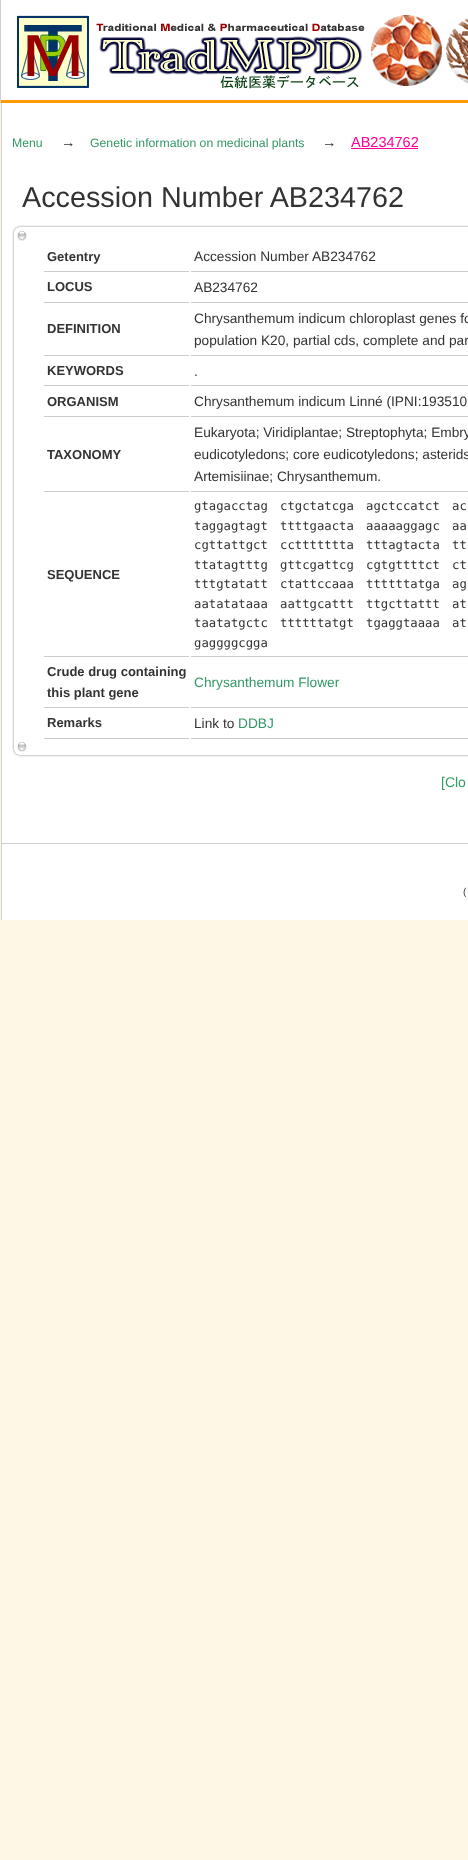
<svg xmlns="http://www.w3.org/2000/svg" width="468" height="1860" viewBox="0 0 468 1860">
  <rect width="100%" height="100%" fill="#fff7e5"/>
  <path d="M1 0h467v100H1z" fill="#fff"/>
  <path d="M0 0h1v103H0z" fill="#cecfce"/>
  <image x="17" y="15" width="451" height="74" href="img/1.png"/>
  <path d="M1 100h467v3H1z" fill="#f90"/>
  <path d="M2 103h466v817H2z" fill="#fff"/>
  <path d="M1 103h1v817H1z" fill="#cecfce"/>
  <path d="M351 148h67v1H351z" fill="#f09"/>
  <image x="27" y="225" width="441" height="2" href="img/2.png"/>
  <image x="12" y="225" width="15" height="16" href="img/3.png"/>
  <image x="12" y="241" width="2" height="500" href="img/4.png"/>
  <path d="M44 271h145v1H44z" fill="#ccc"/>
  <path d="M191 271h277v1H191z" fill="#ccc"/>
  <path d="M44 302h145v1H44z" fill="#ccc"/>
  <path d="M191 302h277v1H191z" fill="#ccc"/>
  <path d="M44 355h145v1H44z" fill="#ccc"/>
  <path d="M191 355h277v1H191z" fill="#ccc"/>
  <path d="M44 385h145v1H44z" fill="#ccc"/>
  <path d="M191 385h277v1H191z" fill="#ccc"/>
  <path d="M44 416h145v1H44z" fill="#ccc"/>
  <path d="M191 416h277v1H191z" fill="#ccc"/>
  <path d="M44 491h145v1H44z" fill="#ccc"/>
  <path d="M191 491h277v1H191z" fill="#ccc"/>
  <path d="M44 656h145v1H44z" fill="#ccc"/>
  <path d="M191 656h277v1H191z" fill="#ccc"/>
  <path d="M44 707h145v1H44z" fill="#ccc"/>
  <path d="M191 707h277v1H191z" fill="#ccc"/>
  <path d="M44 738h145v1H44z" fill="#ccc"/>
  <path d="M191 738h277v1H191z" fill="#ccc"/>
  <image x="27" y="755" width="441" height="2" href="img/5.png"/>
  <image x="12" y="741" width="15" height="16" href="img/6.png"/>
  <path d="M2 843h466v1H2z" fill="#cecfce"/>
  <text x="12" y="147" font-family="Liberation Sans" font-size="12.25" fill="#396">Menu</text>
  <text x="61" y="147" font-family="Liberation Sans" font-size="14.5" fill="#333">→</text>
  <text x="90" y="147" font-family="Liberation Sans" font-size="12.25" fill="#396">Genetic information on medicinal plants</text>
  <text x="322" y="147" font-family="Liberation Sans" font-size="14.5" fill="#333">→</text>
  <text x="351" y="147" font-family="Liberation Sans" font-size="14.5" fill="#f09">AB234762</text>
  <text x="22" y="207" font-family="Liberation Sans" font-size="28.75" fill="#333">Accession Number AB234762</text>
  <text x="47" y="261" font-family="Liberation Sans" font-size="13" font-weight="bold" fill="#333">Getentry</text>
  <text x="194" y="261" font-family="Liberation Sans" font-size="13.7" fill="#333">Accession Number AB234762</text>
  <text x="47" y="291" font-family="Liberation Sans" font-size="13" font-weight="bold" fill="#333">LOCUS</text>
  <text x="194" y="292" font-family="Liberation Sans" font-size="13.7" fill="#333">AB234762</text>
  <text x="47" y="333" font-family="Liberation Sans" font-size="13" font-weight="bold" fill="#333">DEFINITION</text>
  <g font-family="Liberation Sans" font-size="13.7" fill="#333">
    <text x="194" y="323">Chrysanthemum indicum chloroplast genes fo</text>
    <text x="194" y="345">population K20, partial cds, complete and par</text>
  </g>
  <text x="47" y="375" font-family="Liberation Sans" font-size="13" font-weight="bold" fill="#333">KEYWORDS</text>
  <text x="194" y="376" font-family="Liberation Sans" font-size="13.7" fill="#333">.</text>
  <text x="47" y="406" font-family="Liberation Sans" font-size="13" font-weight="bold" fill="#333">ORGANISM</text>
  <text x="194" y="406" font-family="Liberation Sans" font-size="13.7" fill="#333">Chrysanthemum indicum Linné (IPNI:193510</text>
  <text x="47" y="459" font-family="Liberation Sans" font-size="13" font-weight="bold" fill="#333">TAXONOMY</text>
  <g font-family="Liberation Sans" font-size="13.7" fill="#333">
    <text x="194" y="437">Eukaryota; Viridiplantae; Streptophyta; Embry</text>
    <text x="194" y="459">eudicotyledons; core eudicotyledons; asterids</text>
    <text x="194" y="481">Artemisiinae; Chrysanthemum.</text>
  </g>
  <text x="47" y="579" font-family="Liberation Sans" font-size="13" font-weight="bold" fill="#333">SEQUENCE</text>
  <g font-family="DejaVu Sans Mono" font-size="12.25" fill="#333">
    <text x="194" y="510">gtagacctag</text>
    <text x="280" y="510">ctgctatcga</text>
    <text x="366" y="510">agctccatct</text>
    <text x="452" y="510">ac</text>
    <text x="194" y="530">taggagtagt</text>
    <text x="280" y="530">ttttgaacta</text>
    <text x="366" y="530">aaaaaggagc</text>
    <text x="452" y="530">aa</text>
    <text x="194" y="549">cgttattgct</text>
    <text x="280" y="549">ccttttttta</text>
    <text x="366" y="549">tttagtacta</text>
    <text x="452" y="549">tt</text>
    <text x="194" y="569">ttatagtttg</text>
    <text x="280" y="569">gttcgattcg</text>
    <text x="366" y="569">cgtgttttct</text>
    <text x="452" y="569">ct</text>
    <text x="194" y="588">tttgtatatt</text>
    <text x="280" y="588">ctattccaaa</text>
    <text x="366" y="588">ttttttatga</text>
    <text x="452" y="588">ag</text>
    <text x="194" y="608">aatatataaa</text>
    <text x="280" y="608">aattgcattt</text>
    <text x="366" y="608">ttgcttattt</text>
    <text x="452" y="608">at</text>
    <text x="194" y="627">taatatgctc</text>
    <text x="280" y="627">ttttttatgt</text>
    <text x="366" y="627">tgaggtaaaa</text>
    <text x="452" y="627">at</text>
    <text x="194" y="647">gaggggcgga</text>
  </g>
  <g font-family="Liberation Sans" font-size="13" font-weight="bold" fill="#333">
    <text x="47" y="676">Crude drug containing</text>
    <text x="47" y="697">this plant gene</text>
  </g>
  <text x="194" y="687" font-family="Liberation Sans" font-size="13.7" fill="#396">Chrysanthemum Flower</text>
  <text x="47" y="727" font-family="Liberation Sans" font-size="13" font-weight="bold" fill="#333">Remarks</text>
  <text x="194" y="728" font-family="Liberation Sans" font-size="13.7" fill="#333">Link to</text>
  <text x="238" y="728" font-family="Liberation Sans" font-size="13.7" fill="#396">DDBJ</text>
  <text x="441" y="787" font-family="Liberation Sans" font-size="14" fill="#396">[Clo</text>
  <text x="463" y="895" font-family="Liberation Sans" font-size="10" fill="#333">(</text>
</svg>
